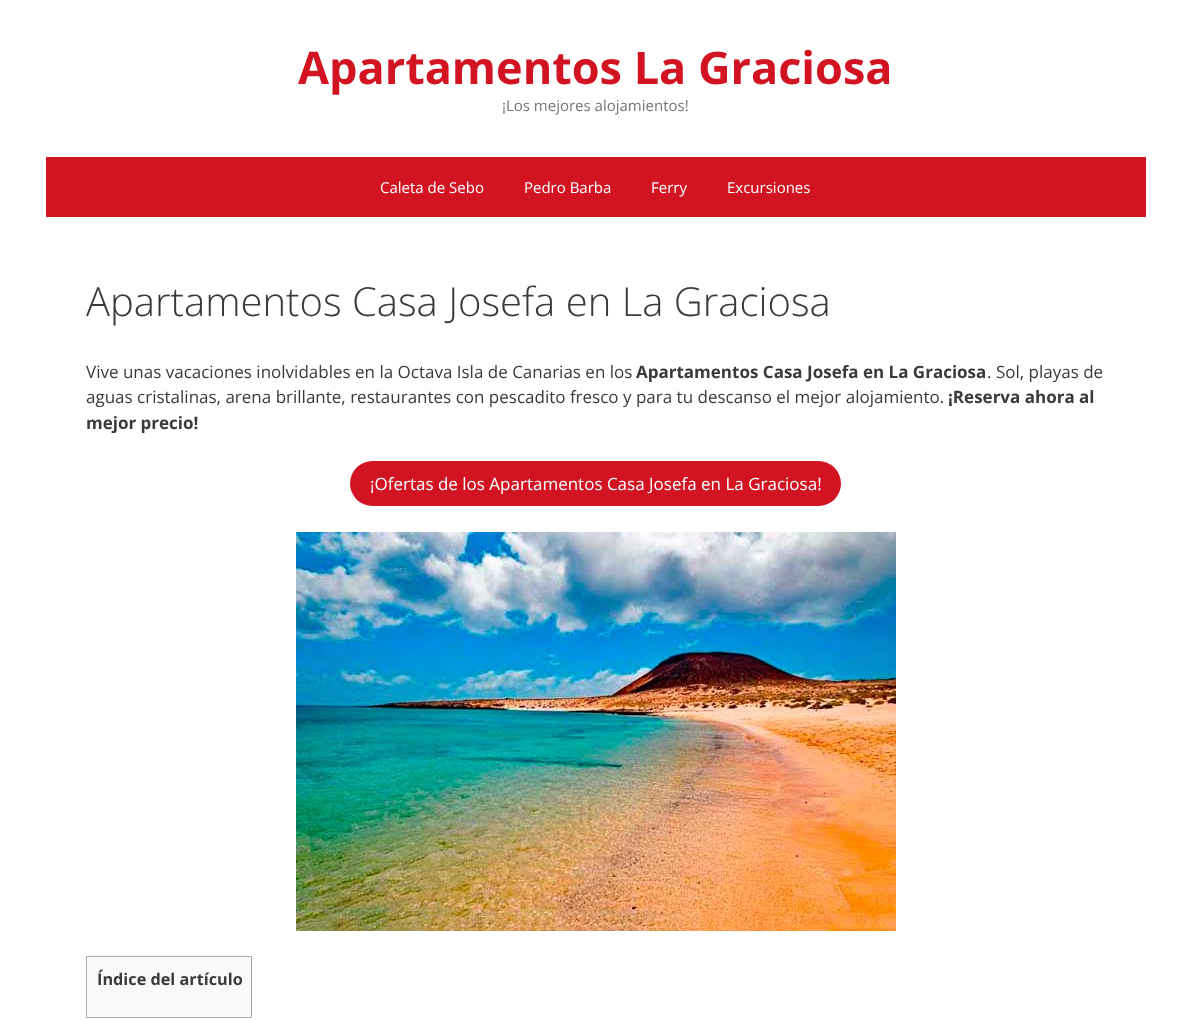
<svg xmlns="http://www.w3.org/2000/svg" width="1191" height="1020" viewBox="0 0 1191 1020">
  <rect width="100%" height="100%" fill="#fff"/>
  <path d="M46 157h1100v60H46z" fill="#d21322"/>
  <rect x="350" y="461" width="491" height="45" rx="22.5" fill="#d21322"/>
  <image x="296" y="532" width="600" height="399" href="img/1.png"/>
  <path d="M86.5 956.5h165v61H86.5z" fill="#f9f9f9" stroke="#aaa"/>
  <text x="298" y="84" font-family="Open Sans" font-size="45" font-weight="bold" fill="#d21322">Apartamentos La Graciosa</text>
  <text x="502" y="111" font-family="Open Sans" font-size="15" fill="#757575">¡Los mejores alojamientos!</text>
  <g font-family="Open Sans" font-size="15" fill="#fff">
    <text x="380" y="193">Caleta de Sebo</text>
    <text x="524" y="193">Pedro Barba</text>
    <text x="651" y="193">Ferry</text>
    <text x="727" y="193">Excursiones</text>
  </g>
  <text x="86" y="316" font-family="Open Sans" font-size="40" font-weight="300" fill="#3a3a3a">Apartamentos Casa Josefa en La Graciosa</text>
  <text x="86" y="378" font-family="Open Sans" font-size="17" fill="#3a3a3a">Vive unas vacaciones inolvidables en la Octava Isla de Canarias en los</text>
  <text x="636" y="378" font-family="Open Sans" font-size="17" font-weight="bold" fill="#3a3a3a">Apartamentos Casa Josefa en La Graciosa</text>
  <g font-family="Open Sans" font-size="17" fill="#3a3a3a">
    <text x="987" y="378">. Sol, playas de</text>
    <text x="86" y="403">aguas cristalinas, arena brillante, restaurantes con pescadito fresco y para tu descanso el mejor alojamiento.</text>
  </g>
  <g font-family="Open Sans" font-size="17" font-weight="bold" fill="#3a3a3a">
    <text x="948" y="403">¡Reserva ahora al</text>
    <text x="86" y="429">mejor precio!</text>
  </g>
  <text x="370" y="490" font-family="Open Sans" font-size="17" fill="#fff">¡Ofertas de los Apartamentos Casa Josefa en La Graciosa!</text>
  <text x="97" y="985" font-family="Open Sans" font-size="16.25" font-weight="bold" fill="#3a3a3a">Índice del artículo</text>
</svg>
